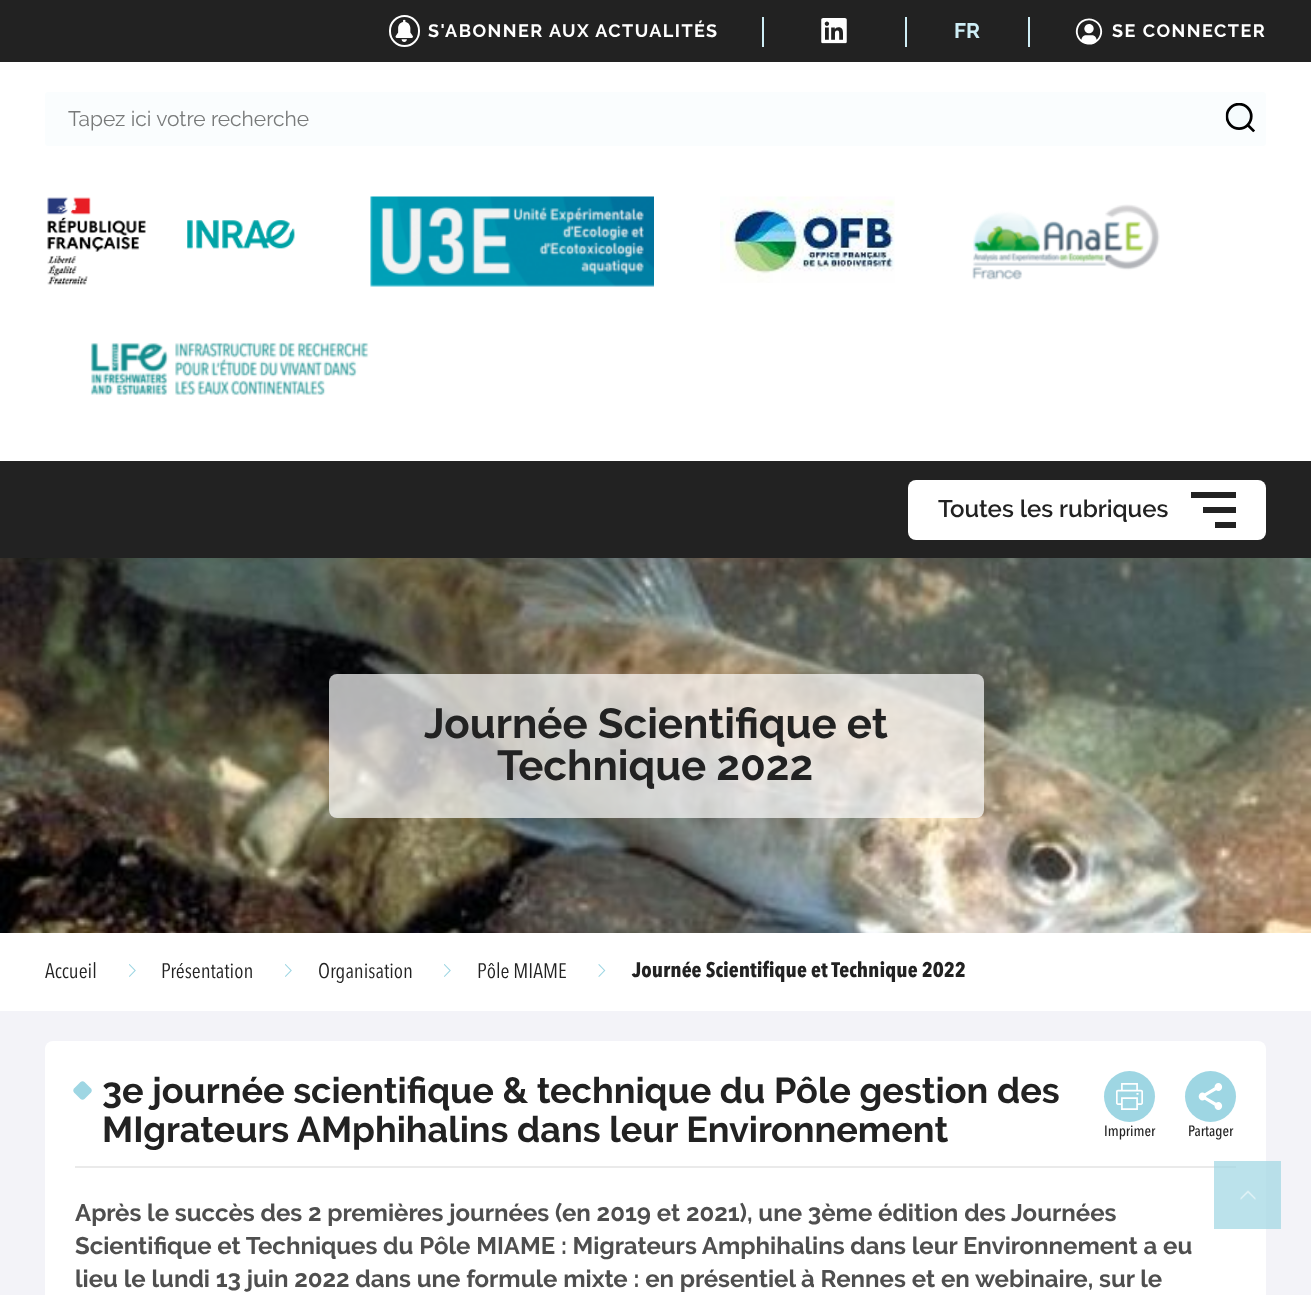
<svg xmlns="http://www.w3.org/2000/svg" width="1311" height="1295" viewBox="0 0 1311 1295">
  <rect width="100%" height="100%" fill="#fff"/>
  <path d="M0 0h1311v62H0z" fill="#222"/>
  <rect x="390" y="16" width="29" height="30" rx="14.5" fill="none" stroke="#fff" stroke-width="2"/>
  <image x="395" y="19" width="18" height="23" href="img/1.png"/>
  <path d="M762 17h2v30H762z" fill="#ceeef6"/>
  <image x="821" y="18" width="26" height="26" href="img/2.png"/>
  <path d="M905 17h2v30H905z" fill="#ceeef6"/>
  <path d="M1028 17h2v30H1028z" fill="#ceeef6"/>
  <image x="1075" y="18" width="28" height="27" href="img/3.png"/>
  <rect x="45" y="92" width="1221" height="54" rx="3" fill="#fafdfe"/>
  <image x="1225" y="103" width="30" height="30" href="img/4.png"/>
  <image x="47" y="197" width="248" height="88" href="img/5.png"/>
  <image x="370" y="196" width="284" height="91" href="img/6.png"/>
  <image x="720" y="196" width="175" height="87" href="img/7.png"/>
  <image x="972" y="204" width="188" height="76" href="img/8.png"/>
  <image x="90" y="342" width="279" height="53" href="img/9.png"/>
  <path d="M0 461h1311v97H0z" fill="#222"/>
  <rect x="908" y="480" width="358" height="60" rx="8" fill="#fff"/>
  <path d="M1191 492h45v6H1191z" fill="#222"/>
  <path d="M1203 507h33v6H1203z" fill="#222"/>
  <path d="M1215 522h21v6H1215z" fill="#222"/>
  <image x="0" y="558" width="1311" height="375" href="img/10.png"/>
  <rect x="329" y="674" width="655" height="144" rx="8" fill="#ffffffb3"/>
  <image x="129" y="964" width="7" height="13" href="img/11.png"/>
  <image x="285" y="964" width="7" height="13" href="img/11.png"/>
  <image x="444" y="964" width="7" height="13" href="img/11.png"/>
  <image x="598" y="964" width="8" height="13" href="img/12.png"/>
  <path d="M0 1011h1311v284H0z" fill="#f3f3f8"/>
  <path d="M1266 1161h15v68H1266z" fill="#b8dfe9"/>
  <rect x="45" y="1041" width="1221" height="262" rx="8" fill="#fff"/>
  <path d="M1214 1161h52v68H1214z" fill="#bbe2eb"/>
  <path d="M75 1166h1139v2H75z" fill="#eaeaea"/>
  <path d="M1214 1166h22v2H1214z" fill="#b5dce5"/>
  <path d="M84.5 1082L91 1088.5C92 1089.5 92 1091.5 91 1092.5L84.5 1099C83.5 1100 81.5 1100 80.5 1099L74 1092.5C73 1091.5 73 1089.5 74 1088.5L80.5 1082C81.5 1081 83.5 1081 84.5 1082Z" fill="#9ed6e3"/>
  <circle cx="1129.5" cy="1096.5" r="25.5" fill="#9ed6e3"/>
  <image x="1116" y="1083" width="27" height="27" href="img/13.png"/>
  <circle cx="1210.5" cy="1096.5" r="25.5" fill="#9ed6e3"/>
  <image x="1198" y="1083" width="25" height="27" href="img/14.png"/>
  <image x="1240" y="1190" width="16" height="10" href="img/15.png"/>
  <text x="428" y="37" font-family="Raleway" font-size="18" font-weight="bold" letter-spacing="1.5" fill="#fff">S'ABONNER AUX ACTUALITÉS</text>
  <text x="954" y="38" font-family="Raleway" font-size="21" font-weight="bold" fill="#ceeef6">FR</text>
  <text x="1112" y="37" font-family="Raleway" font-size="18" font-weight="bold" letter-spacing="1.5" fill="#fff">SE CONNECTER</text>
  <text x="68" y="126" font-family="Raleway" font-size="21" fill="#787a7a">Tapez ici votre recherche</text>
  <text x="938" y="517" font-family="Raleway" font-size="24" font-weight="600" fill="#222">Toutes les rubriques</text>
  <g font-family="Raleway" font-size="42" font-weight="bold" fill="#222">
    <text x="424" y="738">Journée Scientifique et</text>
    <text x="497" y="780">Technique 2022</text>
  </g>
  <g font-family="Avenir Next" font-size="21" fill="#222">
    <text x="45" y="978">Accueil</text>
    <text x="161" y="978">Présentation</text>
    <text x="318" y="978">Organisation</text>
    <text x="477" y="978">Pôle MIAME</text>
  </g>
  <text x="632" y="977" font-family="Avenir Next" font-size="21" font-weight="bold" fill="#222">Journée Scientifique et Technique 2022</text>
  <g font-family="Raleway" font-size="36" font-weight="bold" fill="#222">
    <text x="102" y="1103">3e journée scientifique &amp; technique du Pôle gestion des</text>
    <text x="102" y="1142">MIgrateurs AMphihalins dans leur Environnement</text>
  </g>
  <g font-family="Avenir Next" font-size="15" font-weight="500" fill="#222">
    <text x="1104" y="1136">Imprimer</text>
    <text x="1188" y="1136">Partager</text>
  </g>
  <g font-family="Raleway" font-size="24" font-weight="bold" fill="#4f4f4f">
    <text x="75" y="1221">Après le succès des 2 premières journées (en 2019 et 2021), une 3ème édition des Journées</text>
    <text x="75" y="1254">Scientifique et Techniques du Pôle MIAME : Migrateurs Amphihalins dans leur Environnement a eu</text>
    <text x="75" y="1287">lieu le lundi 13 juin 2022 dans une formule mixte : en présentiel à Rennes et en webinaire, sur le</text>
  </g>
</svg>
